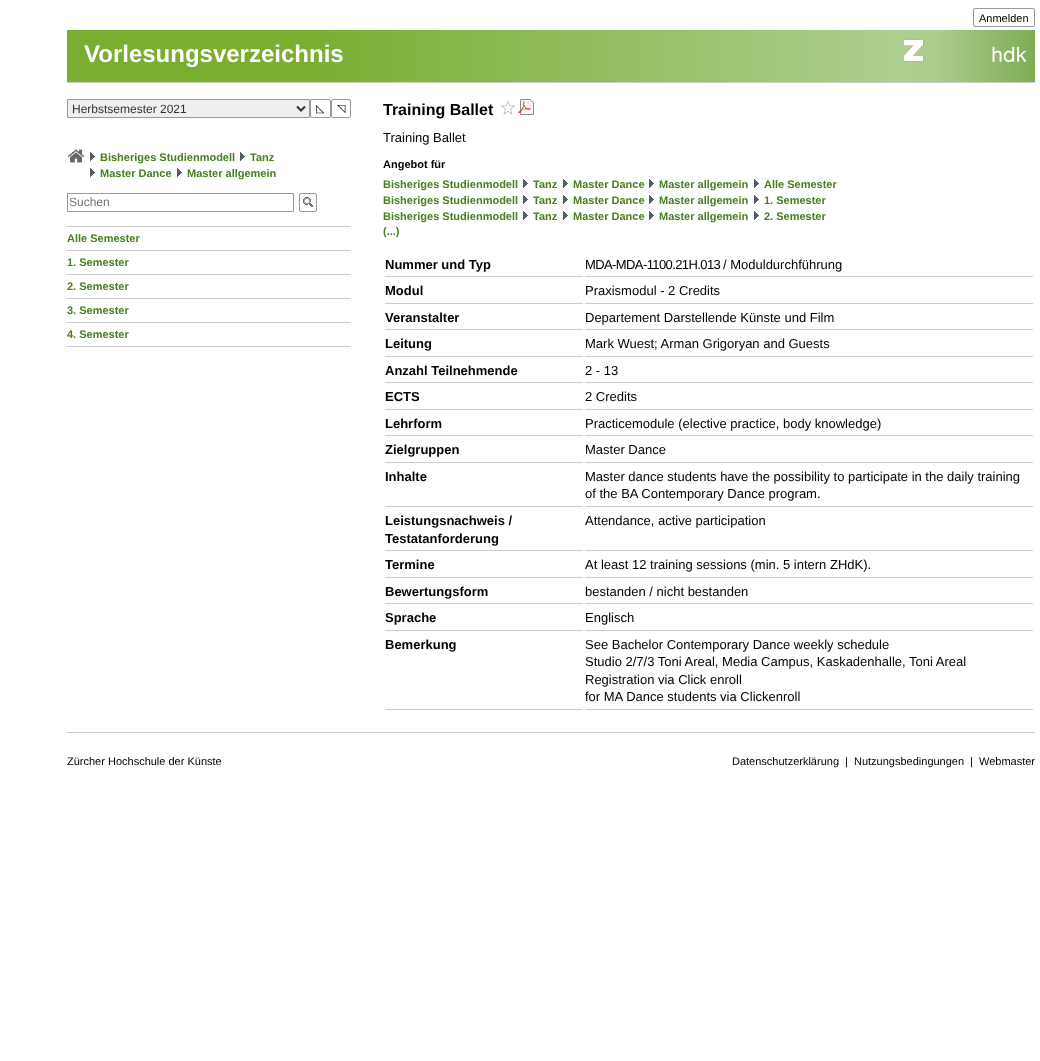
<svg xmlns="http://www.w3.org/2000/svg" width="1040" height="1061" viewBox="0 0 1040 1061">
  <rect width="100%" height="100%" fill="#fff"/>
  <rect x="973.5" y="8.5" width="61" height="18" rx="1.5" fill="none" stroke="#999"/>
  <image x="67" y="30" width="968" height="52" href="img/1.png"/>
  <image x="904" y="39" width="122" height="23" href="img/2.png"/>
  <path d="M67 82h968v1H67z" fill="#ccc"/>
  <path d="M67.5 99.5h242v18H67.5z" fill="#efefef" stroke="#999"/>
  <path d="M297 106.5L301 110.5L305 106.5" fill="none" stroke="#333" stroke-width="2"/>
  <rect x="310.5" y="99.5" width="20" height="18" rx="1.5" fill="none" stroke="#999"/>
  <rect x="331.5" y="99.5" width="19" height="18" rx="1.5" fill="none" stroke="#999"/>
  <image x="68" y="149" width="16" height="14" href="img/3.png"/>
  <image x="90" y="152" width="5" height="9" href="img/4.png"/>
  <image x="240" y="152" width="5" height="9" href="img/4.png"/>
  <image x="90" y="168" width="5" height="9" href="img/4.png"/>
  <image x="177" y="168" width="5" height="9" href="img/4.png"/>
  <path d="M67.5 193.5h226v18H67.5z" fill="none" stroke="#999"/>
  <image x="303" y="197" width="10" height="10" href="img/5.png"/>
  <rect x="299.5" y="193.5" width="17" height="18" rx="1.5" fill="none" stroke="#999"/>
  <path d="M67 226h284v1H67z" fill="#ccc"/>
  <path d="M67 250h284v1H67z" fill="#ccc"/>
  <path d="M67 274h284v1H67z" fill="#ccc"/>
  <path d="M67 298h284v1H67z" fill="#ccc"/>
  <path d="M67 322h284v1H67z" fill="#ccc"/>
  <path d="M67 346h284v1H67z" fill="#ccc"/>
  <image x="501" y="101" width="14" height="14" href="img/6.png"/>
  <image x="518" y="99" width="16" height="16" href="img/7.png"/>
  <image x="523" y="179" width="5" height="9" href="img/4.png"/>
  <image x="563" y="179" width="5" height="9" href="img/4.png"/>
  <image x="649" y="179" width="5" height="9" href="img/4.png"/>
  <image x="754" y="179" width="5" height="9" href="img/4.png"/>
  <image x="523" y="195" width="5" height="9" href="img/4.png"/>
  <image x="563" y="195" width="5" height="9" href="img/4.png"/>
  <image x="649" y="195" width="5" height="9" href="img/4.png"/>
  <image x="754" y="195" width="5" height="9" href="img/4.png"/>
  <image x="523" y="211" width="5" height="9" href="img/4.png"/>
  <image x="563" y="211" width="5" height="9" href="img/4.png"/>
  <image x="649" y="211" width="5" height="9" href="img/4.png"/>
  <image x="754" y="211" width="5" height="9" href="img/4.png"/>
  <path d="M385 276h198v1H385z" fill="#ccc"/>
  <path d="M585 276h448v1H585z" fill="#ccc"/>
  <path d="M385 303h198v1H385z" fill="#ccc"/>
  <path d="M585 303h448v1H585z" fill="#ccc"/>
  <path d="M385 329h198v1H385z" fill="#ccc"/>
  <path d="M585 329h448v1H585z" fill="#ccc"/>
  <path d="M385 356h198v1H385z" fill="#ccc"/>
  <path d="M585 356h448v1H585z" fill="#ccc"/>
  <path d="M385 382h198v1H385z" fill="#ccc"/>
  <path d="M585 382h448v1H585z" fill="#ccc"/>
  <path d="M385 409h198v1H385z" fill="#ccc"/>
  <path d="M585 409h448v1H585z" fill="#ccc"/>
  <path d="M385 435h198v1H385z" fill="#ccc"/>
  <path d="M585 435h448v1H585z" fill="#ccc"/>
  <path d="M385 462h198v1H385z" fill="#ccc"/>
  <path d="M585 462h448v1H585z" fill="#ccc"/>
  <path d="M385 506h198v1H385z" fill="#ccc"/>
  <path d="M585 506h448v1H585z" fill="#ccc"/>
  <path d="M385 550h198v1H385z" fill="#ccc"/>
  <path d="M585 550h448v1H585z" fill="#ccc"/>
  <path d="M385 577h198v1H385z" fill="#ccc"/>
  <path d="M585 577h448v1H585z" fill="#ccc"/>
  <path d="M385 603h198v1H385z" fill="#ccc"/>
  <path d="M585 603h448v1H585z" fill="#ccc"/>
  <path d="M385 630h198v1H385z" fill="#ccc"/>
  <path d="M585 630h448v1H585z" fill="#ccc"/>
  <path d="M385 709h198v1H385z" fill="#ccc"/>
  <path d="M585 709h448v1H585z" fill="#ccc"/>
  <path d="M67 732h968v1H67z" fill="#ccc"/>
  <text x="979" y="22" font-family="Liberation Sans" font-size="11" fill="#000">Anmelden</text>
  <text x="84" y="62" font-family="Liberation Sans" font-size="24" font-weight="bold" fill="#fff">Vorlesungsverzeichnis</text>
  <text x="72" y="113" font-family="Liberation Sans" font-size="12" fill="#333">Herbstsemester 2021</text>
  <g font-family="DejaVu Sans" font-size="11" fill="#000">
    <text x="316" y="112">◺</text>
    <text x="337" y="112">◹</text>
  </g>
  <g font-family="Liberation Sans" font-size="11" font-weight="bold" fill="#477e1e">
    <text x="100" y="161">Bisheriges Studienmodell</text>
    <text x="250" y="161">Tanz</text>
    <text x="100" y="177">Master Dance</text>
    <text x="187" y="177">Master allgemein</text>
  </g>
  <text x="69" y="206" font-family="Liberation Sans" font-size="12" fill="#757575">Suchen</text>
  <g font-family="Liberation Sans" font-size="11" font-weight="bold" fill="#477e1e">
    <text x="67" y="242">Alle Semester</text>
    <text x="67" y="266">1. Semester</text>
    <text x="67" y="290">2. Semester</text>
    <text x="67" y="314">3. Semester</text>
    <text x="67" y="338">4. Semester</text>
  </g>
  <text x="383" y="115" font-family="Liberation Sans" font-size="16" font-weight="bold" fill="#000">Training Ballet</text>
  <text x="383" y="142" font-family="Liberation Sans" font-size="13" fill="#000">Training Ballet</text>
  <text x="383" y="168" font-family="Liberation Sans" font-size="11" font-weight="bold" fill="#000">Angebot für</text>
  <g font-family="Liberation Sans" font-size="11" font-weight="bold" fill="#477e1e">
    <text x="383" y="188">Bisheriges Studienmodell</text>
    <text x="533" y="188">Tanz</text>
    <text x="573" y="188">Master Dance</text>
    <text x="659" y="188">Master allgemein</text>
    <text x="764" y="188">Alle Semester</text>
    <text x="383" y="204">Bisheriges Studienmodell</text>
    <text x="533" y="204">Tanz</text>
    <text x="573" y="204">Master Dance</text>
    <text x="659" y="204">Master allgemein</text>
    <text x="764" y="204">1. Semester</text>
    <text x="383" y="220">Bisheriges Studienmodell</text>
    <text x="533" y="220">Tanz</text>
    <text x="573" y="220">Master Dance</text>
    <text x="659" y="220">Master allgemein</text>
    <text x="764" y="220">2. Semester</text>
    <text x="383" y="235">(...)</text>
  </g>
  <text x="385" y="269" font-family="Liberation Sans" font-size="13" font-weight="bold" fill="#000">Nummer und Typ</text>
  <text x="585" y="269" font-family="Liberation Sans" font-size="13" letter-spacing="-0.6" fill="#000">MDA-MDA-1100.21H.013</text>
  <text x="723" y="269" font-family="Liberation Sans" font-size="13" fill="#000">/ Moduldurchführung</text>
  <text x="385" y="295" font-family="Liberation Sans" font-size="13" font-weight="bold" fill="#000">Modul</text>
  <text x="585" y="295" font-family="Liberation Sans" font-size="13" fill="#000">Praxismodul - 2 Credits</text>
  <text x="385" y="322" font-family="Liberation Sans" font-size="13" font-weight="bold" fill="#000">Veranstalter</text>
  <text x="585" y="322" font-family="Liberation Sans" font-size="13" fill="#000">Departement Darstellende Künste und Film</text>
  <text x="385" y="348" font-family="Liberation Sans" font-size="13" font-weight="bold" fill="#000">Leitung</text>
  <text x="585" y="348" font-family="Liberation Sans" font-size="13" fill="#000">Mark Wuest; Arman Grigoryan and Guests</text>
  <text x="385" y="375" font-family="Liberation Sans" font-size="13" font-weight="bold" fill="#000">Anzahl Teilnehmende</text>
  <text x="585" y="375" font-family="Liberation Sans" font-size="13" fill="#000">2 - 13</text>
  <text x="385" y="401" font-family="Liberation Sans" font-size="13" font-weight="bold" fill="#000">ECTS</text>
  <text x="585" y="401" font-family="Liberation Sans" font-size="13" fill="#000">2 Credits</text>
  <text x="385" y="428" font-family="Liberation Sans" font-size="13" font-weight="bold" fill="#000">Lehrform</text>
  <text x="585" y="428" font-family="Liberation Sans" font-size="13" fill="#000">Practicemodule (elective practice, body knowledge)</text>
  <text x="385" y="454" font-family="Liberation Sans" font-size="13" font-weight="bold" fill="#000">Zielgruppen</text>
  <text x="585" y="454" font-family="Liberation Sans" font-size="13" fill="#000">Master Dance</text>
  <text x="385" y="481" font-family="Liberation Sans" font-size="13" font-weight="bold" fill="#000">Inhalte</text>
  <g font-family="Liberation Sans" font-size="13" fill="#000">
    <text x="585" y="481">Master dance students have the possibility to participate in the daily training</text>
    <text x="585" y="498">of the BA Contemporary Dance program.</text>
  </g>
  <g font-family="Liberation Sans" font-size="13" font-weight="bold" fill="#000">
    <text x="385" y="525">Leistungsnachweis /</text>
    <text x="385" y="543">Testatanforderung</text>
  </g>
  <text x="585" y="525" font-family="Liberation Sans" font-size="13" fill="#000">Attendance, active participation</text>
  <text x="385" y="569" font-family="Liberation Sans" font-size="13" font-weight="bold" fill="#000">Termine</text>
  <text x="585" y="569" font-family="Liberation Sans" font-size="13" fill="#000">At least 12 training sessions (min. 5 intern ZHdK).</text>
  <text x="385" y="596" font-family="Liberation Sans" font-size="13" font-weight="bold" fill="#000">Bewertungsform</text>
  <text x="585" y="596" font-family="Liberation Sans" font-size="13" fill="#000">bestanden / nicht bestanden</text>
  <text x="385" y="622" font-family="Liberation Sans" font-size="13" font-weight="bold" fill="#000">Sprache</text>
  <text x="585" y="622" font-family="Liberation Sans" font-size="13" fill="#000">Englisch</text>
  <text x="385" y="649" font-family="Liberation Sans" font-size="13" font-weight="bold" fill="#000">Bemerkung</text>
  <g font-family="Liberation Sans" font-size="13" fill="#000">
    <text x="585" y="649">See Bachelor Contemporary Dance weekly schedule</text>
    <text x="585" y="666">Studio 2/7/3 Toni Areal, Media Campus, Kaskadenhalle, Toni Areal</text>
    <text x="585" y="684">Registration via Click enroll</text>
    <text x="585" y="701">for MA Dance students via Clickenroll</text>
  </g>
  <g font-family="Liberation Sans" font-size="11" fill="#000">
    <text x="67" y="765">Zürcher Hochschule der Künste</text>
    <text x="732" y="765">Datenschutzerklärung</text>
    <text x="845" y="765">|</text>
    <text x="854" y="765">Nutzungsbedingungen</text>
    <text x="970" y="765">|</text>
    <text x="979" y="765">Webmaster</text>
  </g>
</svg>
